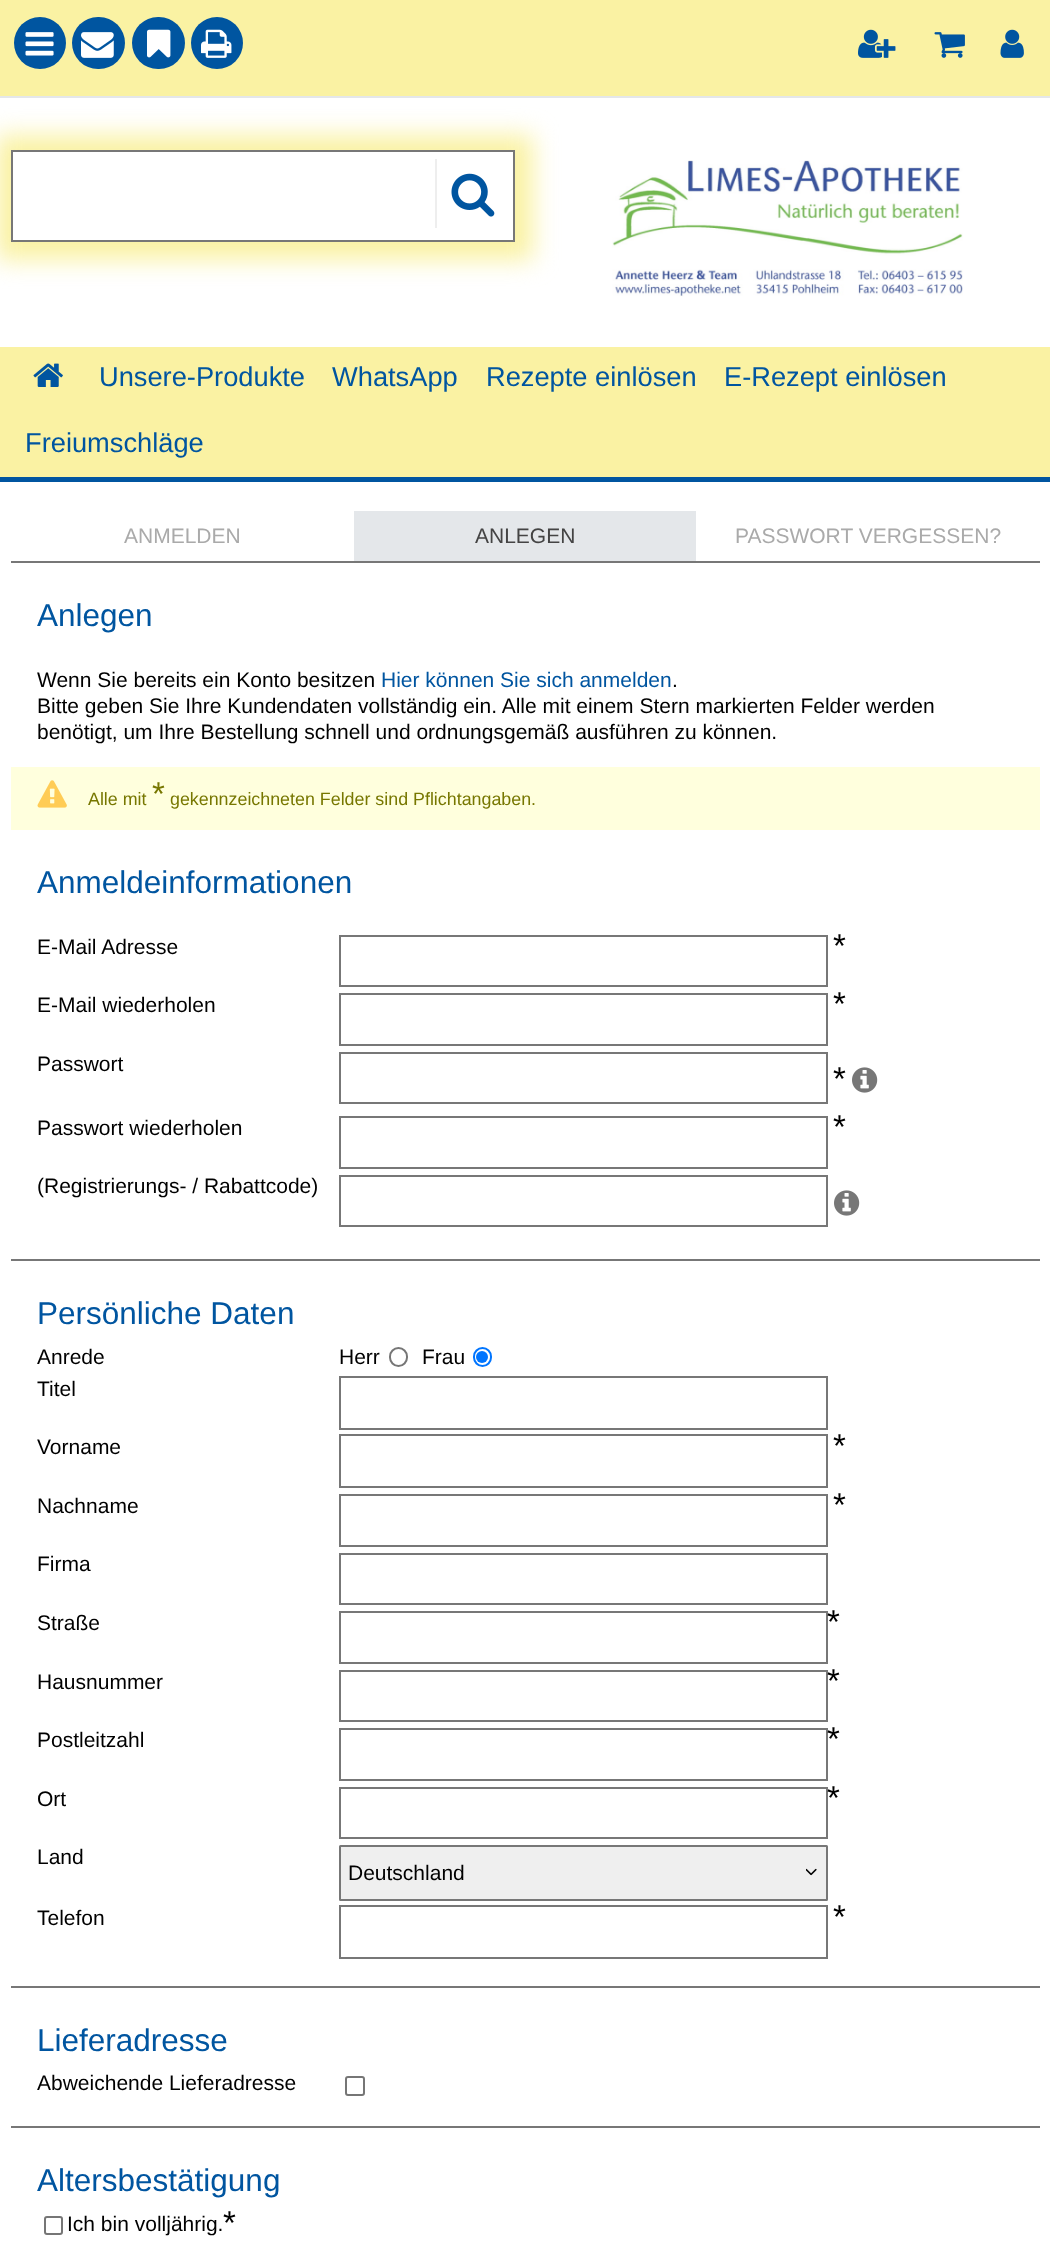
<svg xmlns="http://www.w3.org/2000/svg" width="1050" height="2260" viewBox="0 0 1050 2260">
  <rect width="100%" height="100%" fill="#fff"/>
  <path d="M-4 135h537v125H-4z" fill="#faf2a3" filter="blur(12px)"/>
  <path d="M12 151h502v90H12z" fill="#fff" stroke="#777" stroke-width="2"/>
  <path d="M435 159h2v69H435z" fill="#eee"/>
  <image x="451" y="173" width="44" height="44" href="img/1.png"/>
  <image x="612" y="160" width="351" height="137" href="img/2.png"/>
  <path d="M0 0h1050v96H0z" fill="#faf2a3"/>
  <path d="M0 96h1050v2H0z" fill="#e4e7ea"/>
  <circle cx="40" cy="43" r="26" fill="#0055a0"/>
  <image x="25" y="32" width="29" height="24" href="img/3.png"/>
  <rect x="72" y="17" width="53" height="52" rx="26" fill="#0055a0"/>
  <image x="81" y="32" width="33" height="26" href="img/4.png"/>
  <rect x="132" y="17" width="53" height="52" rx="26" fill="#0055a0"/>
  <image x="147" y="29" width="24" height="29" href="img/5.png"/>
  <circle cx="217" cy="43" r="26" fill="#0055a0"/>
  <image x="201" y="29" width="31" height="29" href="img/6.png"/>
  <image x="858" y="29" width="38" height="29" href="img/7.png"/>
  <image x="934" y="32" width="31" height="26" href="img/8.png"/>
  <image x="1000" y="29" width="24" height="29" href="img/9.png"/>
  <path d="M0 347h1050v130H0z" fill="#faf2a3"/>
  <path d="M0 477h1050v5H0z" fill="#0055a0"/>
  <image x="33" y="363" width="30" height="24" href="img/10.png"/>
  <path d="M11 561h1029v2H11z" fill="#777"/>
  <path d="M354 511h342v50H354z" fill="#e4e7ea"/>
  <path d="M11 767h1029v63H11z" fill="#ffd"/>
  <image x="37" y="780" width="30" height="28" href="img/11.png"/>
  <path d="M11 1259h1029v2H11z" fill="#777"/>
  <path d="M340 936h487v50H340z" fill="none" stroke="#777" stroke-width="2"/>
  <path d="M340 994h487v51H340z" fill="none" stroke="#777" stroke-width="2"/>
  <path d="M340 1053h487v50H340z" fill="none" stroke="#777" stroke-width="2"/>
  <image x="852" y="1067" width="26" height="26" href="img/12.png"/>
  <path d="M340 1117h487v51H340z" fill="none" stroke="#777" stroke-width="2"/>
  <path d="M340 1176h487v50H340z" fill="none" stroke="#777" stroke-width="2"/>
  <image x="834" y="1190" width="26" height="26" href="img/12.png"/>
  <rect x="390" y="1348" width="17" height="18" rx="8.5" fill="none" stroke="#767676" stroke-width="2"/>
  <rect x="474" y="1348" width="17" height="18" rx="8.5" fill="none" stroke="#0075ff" stroke-width="2"/>
  <circle cx="482" cy="1357" r="6" fill="#0075ff"/>
  <path d="M340 1377h487v52H340z" fill="none" stroke="#777" stroke-width="2"/>
  <path d="M340 1435h487v52H340z" fill="none" stroke="#777" stroke-width="2"/>
  <path d="M340 1495h487v51H340z" fill="none" stroke="#777" stroke-width="2"/>
  <path d="M340 1554h487v50H340z" fill="none" stroke="#777" stroke-width="2"/>
  <path d="M340 1612h487v51H340z" fill="none" stroke="#777" stroke-width="2"/>
  <path d="M340 1671h487v50H340z" fill="none" stroke="#777" stroke-width="2"/>
  <path d="M340 1729h487v51H340z" fill="none" stroke="#777" stroke-width="2"/>
  <path d="M340 1788h487v50H340z" fill="none" stroke="#777" stroke-width="2"/>
  <rect x="339" y="1845" width="489" height="56" rx="1.5" fill="#efefef"/>
  <image x="806" y="1868" width="11" height="8" href="img/13.png"/>
  <rect x="340" y="1846" width="487" height="54" rx="0.5" fill="none" stroke="#777" stroke-width="2"/>
  <path d="M11 1986h1029v2H11z" fill="#777"/>
  <path d="M340 1906h487v52H340z" fill="none" stroke="#777" stroke-width="2"/>
  <rect x="346" y="2077" width="18" height="18" rx="2" fill="none" stroke="#767676" stroke-width="2"/>
  <path d="M11 2126h1029v2H11z" fill="#777"/>
  <rect x="45" y="2217" width="17" height="17" rx="2" fill="none" stroke="#767676" stroke-width="2"/>
  <g font-family="Liberation Sans" font-size="27.25" fill="#0055a0">
    <text x="99" y="386">Unsere-Produkte</text>
    <text x="332" y="386">WhatsApp</text>
    <text x="486" y="386">Rezepte einlösen</text>
    <text x="724" y="386">E-Rezept einlösen</text>
    <text x="25" y="452">Freiumschläge</text>
  </g>
  <text x="124" y="543" font-family="Liberation Sans" font-size="21" fill="#aaa">ANMELDEN</text>
  <text x="475" y="543" font-family="Liberation Sans" font-size="21" fill="#444">ANLEGEN</text>
  <text x="735" y="543" font-family="Liberation Sans" font-size="21" fill="#aaa">PASSWORT VERGESSEN?</text>
  <text x="37" y="626" font-family="Liberation Sans" font-size="31.5" fill="#0055a0">Anlegen</text>
  <text x="37" y="687" font-family="Liberation Sans" font-size="21" fill="#000">Wenn Sie bereits ein Konto besitzen</text>
  <text x="381" y="687" font-family="Liberation Sans" font-size="21" fill="#0055a0">Hier können Sie sich anmelden</text>
  <g font-family="Liberation Sans" font-size="21" fill="#000">
    <text x="672" y="687">.</text>
    <text x="37" y="713">Bitte geben Sie Ihre Kundendaten vollständig ein. Alle mit einem Stern markierten Felder werden</text>
    <text x="37" y="739">benötigt, um Ihre Bestellung schnell und ordnungsgemäß ausführen zu können.</text>
  </g>
  <text x="152" y="805" font-family="Liberation Sans" font-size="33" fill="#770">*</text>
  <g font-family="Liberation Sans" font-size="17.85" fill="#770">
    <text x="88" y="805">Alle mit</text>
    <text x="170" y="805">gekennzeichneten Felder sind Pflichtangaben.</text>
  </g>
  <text x="37" y="893" font-family="Liberation Sans" font-size="31.5" fill="#0055a0">Anmeldeinformationen</text>
  <text x="37" y="954" font-family="Liberation Sans" font-size="21" fill="#000">E-Mail Adresse</text>
  <text x="833" y="957" font-family="Liberation Sans" font-size="33" fill="#000">*</text>
  <text x="37" y="1012" font-family="Liberation Sans" font-size="21" fill="#000">E-Mail wiederholen</text>
  <text x="833" y="1015" font-family="Liberation Sans" font-size="33" fill="#000">*</text>
  <text x="37" y="1071" font-family="Liberation Sans" font-size="21" fill="#000">Passwort</text>
  <text x="833" y="1090" font-family="Liberation Sans" font-size="33" fill="#000">*</text>
  <text x="37" y="1135" font-family="Liberation Sans" font-size="21" fill="#000">Passwort wiederholen</text>
  <text x="833" y="1138" font-family="Liberation Sans" font-size="33" fill="#000">*</text>
  <text x="37" y="1193" font-family="Liberation Sans" font-size="21" fill="#000">(Registrierungs- / Rabattcode)</text>
  <text x="37" y="1324" font-family="Liberation Sans" font-size="31.5" fill="#0055a0">Persönliche Daten</text>
  <g font-family="Liberation Sans" font-size="21" fill="#000">
    <text x="37" y="1364">Anrede</text>
    <text x="339" y="1364">Herr</text>
    <text x="422" y="1364">Frau</text>
    <text x="37" y="1396">Titel</text>
    <text x="37" y="1454">Vorname</text>
  </g>
  <text x="833" y="1457" font-family="Liberation Sans" font-size="33" fill="#000">*</text>
  <text x="37" y="1513" font-family="Liberation Sans" font-size="21" fill="#000">Nachname</text>
  <text x="833" y="1516" font-family="Liberation Sans" font-size="33" fill="#000">*</text>
  <g font-family="Liberation Sans" font-size="21" fill="#000">
    <text x="37" y="1571">Firma</text>
    <text x="37" y="1630">Straße</text>
  </g>
  <text x="827" y="1633" font-family="Liberation Sans" font-size="33" fill="#000">*</text>
  <text x="37" y="1689" font-family="Liberation Sans" font-size="21" fill="#000">Hausnummer</text>
  <text x="827" y="1692" font-family="Liberation Sans" font-size="33" fill="#000">*</text>
  <text x="37" y="1747" font-family="Liberation Sans" font-size="21" fill="#000">Postleitzahl</text>
  <text x="827" y="1750" font-family="Liberation Sans" font-size="33" fill="#000">*</text>
  <text x="37" y="1806" font-family="Liberation Sans" font-size="21" fill="#000">Ort</text>
  <text x="827" y="1809" font-family="Liberation Sans" font-size="33" fill="#000">*</text>
  <g font-family="Liberation Sans" font-size="21" fill="#000">
    <text x="37" y="1864">Land</text>
    <text x="348" y="1880">Deutschland</text>
    <text x="37" y="1925">Telefon</text>
  </g>
  <text x="833" y="1928" font-family="Liberation Sans" font-size="33" fill="#000">*</text>
  <text x="37" y="2051" font-family="Liberation Sans" font-size="31.5" fill="#0055a0">Lieferadresse</text>
  <text x="37" y="2090" font-family="Liberation Sans" font-size="21" fill="#000">Abweichende Lieferadresse</text>
  <text x="37" y="2191" font-family="Liberation Sans" font-size="31.5" fill="#0055a0">Altersbestätigung</text>
  <text x="67" y="2231" font-family="Liberation Sans" font-size="21" fill="#000">Ich bin volljährig.</text>
  <text x="223" y="2234" font-family="Liberation Sans" font-size="33" fill="#000">*</text>
</svg>
